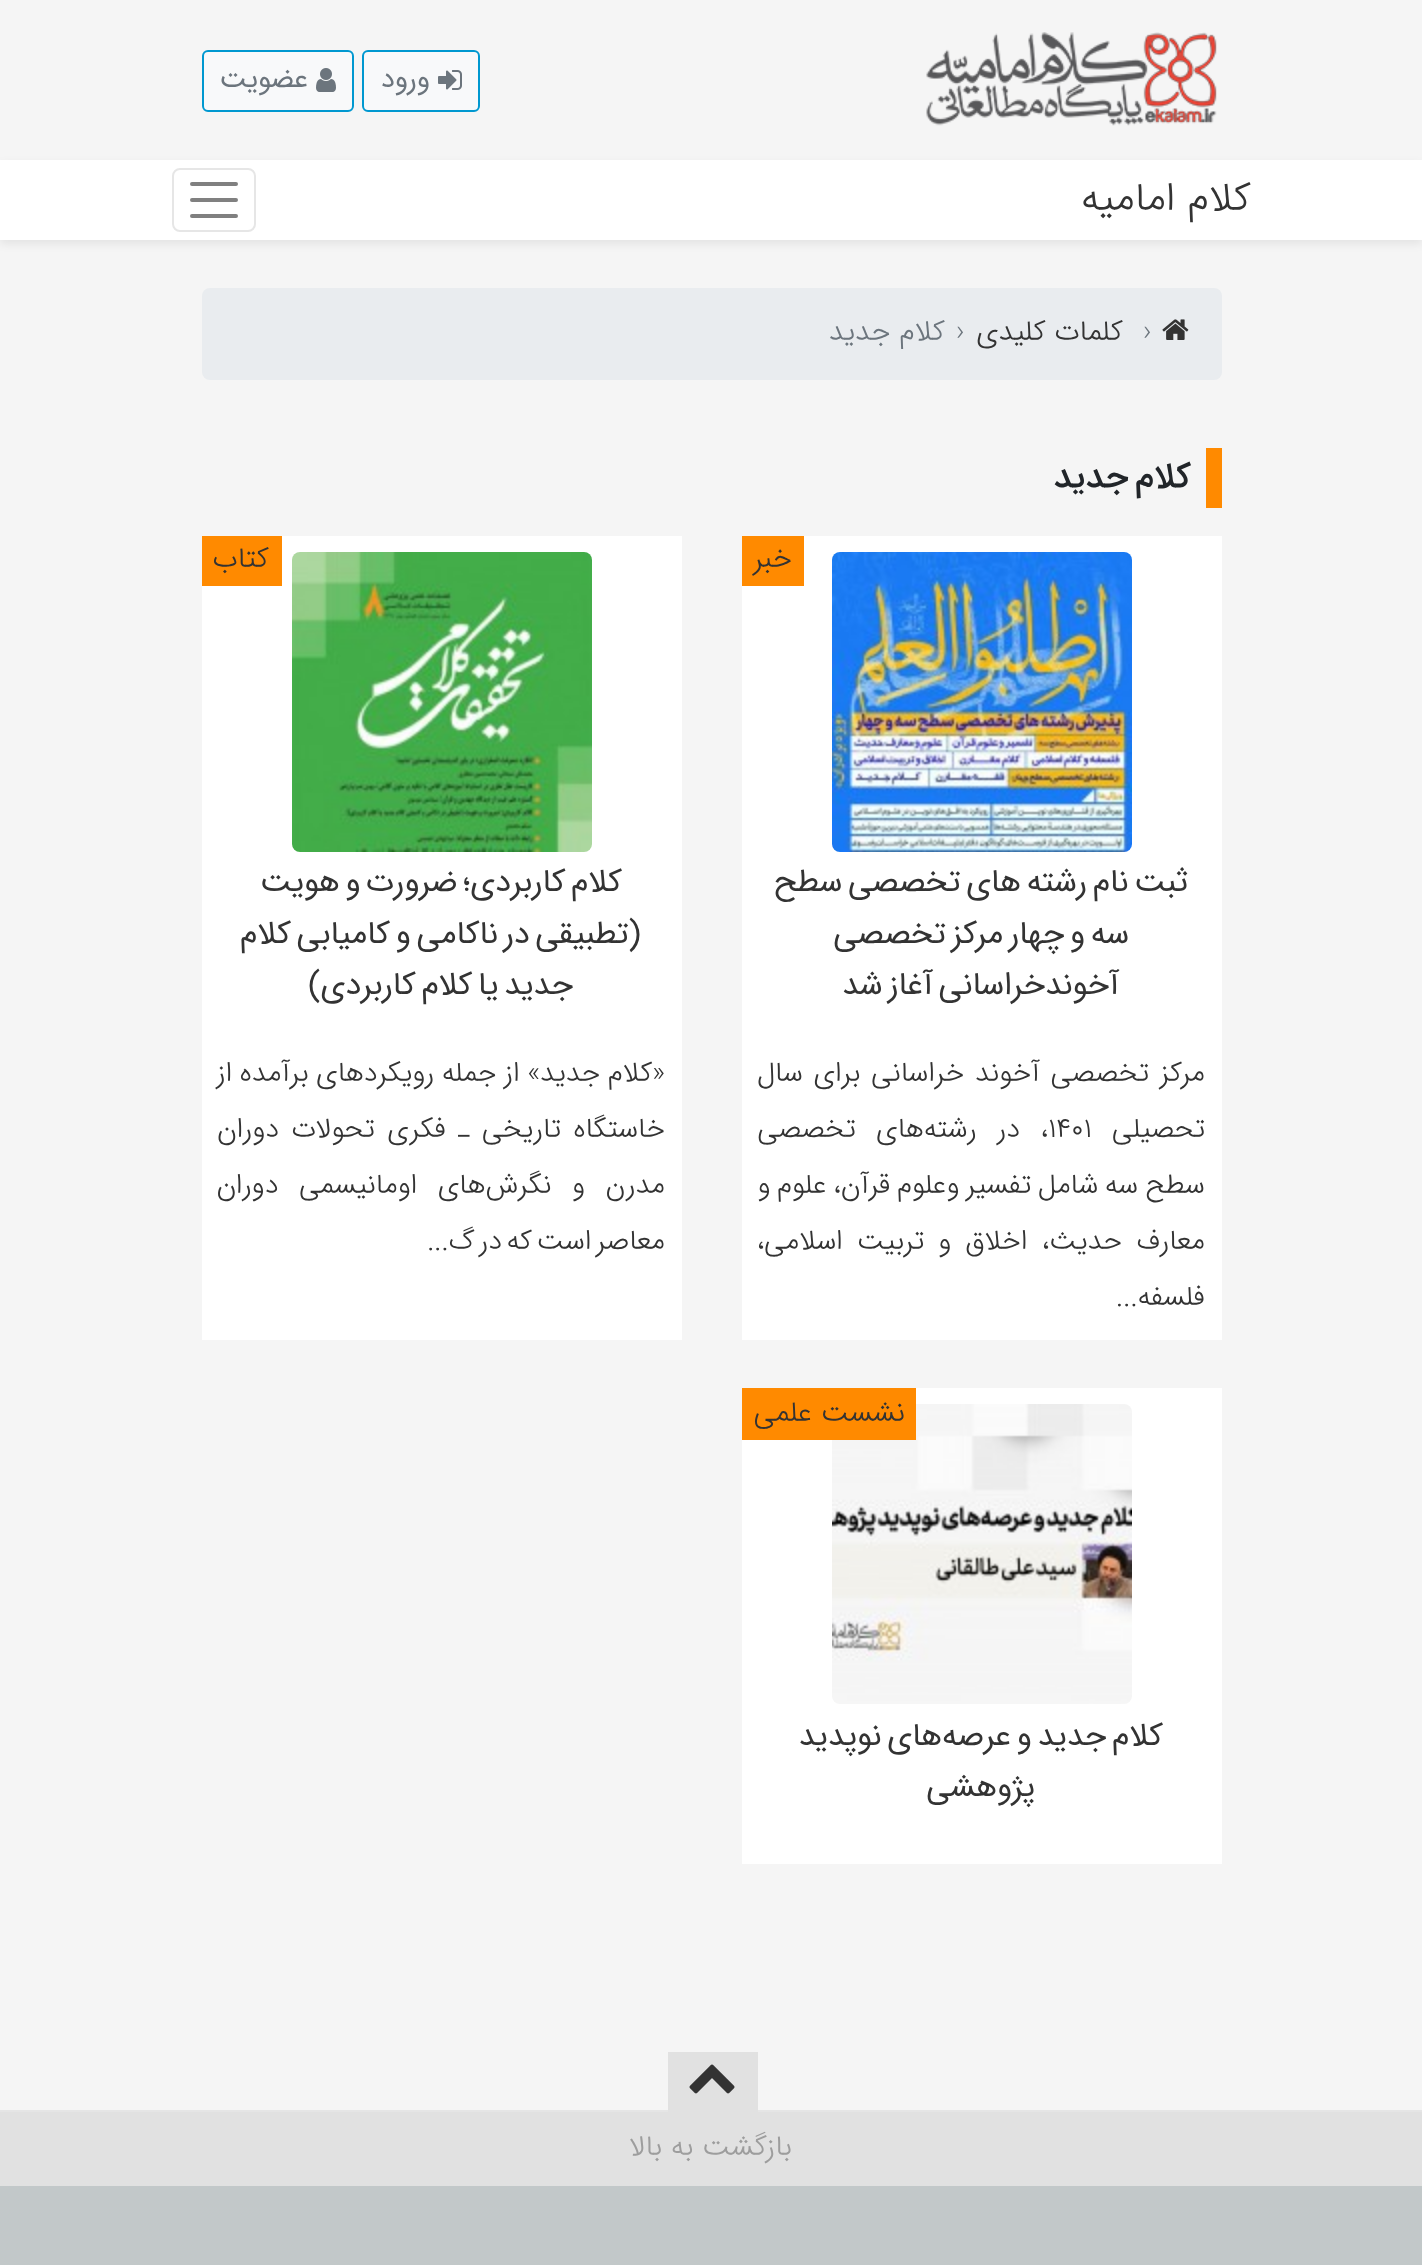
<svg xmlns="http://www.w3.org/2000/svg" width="1422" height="2265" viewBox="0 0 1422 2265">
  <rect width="100%" height="100%" fill="#f5f5f5"/>
  <image x="926" y="32" width="291" height="94" href="img/1.png"/>
  <rect x="363" y="51" width="116" height="60" rx="5" fill="#f8f9fa" stroke="#0098d0" stroke-width="2"/>
  <image x="438" y="70" width="24" height="20" href="img/2.png"/>
  <rect x="203" y="51" width="150" height="60" rx="5" fill="#f8f9fa" stroke="#0098d0" stroke-width="2"/>
  <image x="316" y="68" width="20" height="24" href="img/3.png"/>
  <path d="M0 164h1422v80H0z" fill="#00000012" filter="blur(4px)"/>
  <path d="M0 160h1422v80H0z" fill="#fff"/>
  <rect x="173" y="169" width="82" height="62" rx="7" fill="none" stroke="#e6e6e6" stroke-width="2"/>
  <path d="M192 184H236M192 200H236M192 216H236" fill="none" stroke="#808080" stroke-width="4" stroke-linecap="round"/>
  <rect x="202" y="288" width="1020" height="92" rx="8" fill="#e9ecef"/>
  <image x="1162" y="319" width="27" height="21" href="img/4.png"/>
  <path d="M1206 448h16v60H1206z" fill="#ff8a00"/>
  <path d="M742 536h480v804H742z" fill="#fff"/>
  <image x="832" y="552" width="300" height="300" href="img/5.png"/>
  <path d="M742 536h62v50H742z" fill="#ff8a00"/>
  <path d="M202 536h480v804H202z" fill="#fff"/>
  <image x="292" y="552" width="300" height="300" href="img/6.png"/>
  <path d="M202 536h80v50H202z" fill="#ff8a00"/>
  <path d="M742 1388h480v476H742z" fill="#fff"/>
  <image x="832" y="1404" width="300" height="300" href="img/7.png"/>
  <path d="M742 1388h174v52H742z" fill="#ff8a00"/>
  <path d="M0 2110h1422v2H0z" fill="#e5e5e5"/>
  <path d="M0 2112h1422v74H0z" fill="#e1e1e1"/>
  <path d="M668 2052h90v60H668z" fill="#e1e1e1"/>
  <image x="689" y="2064" width="46" height="30" href="img/8.png"/>
  <path d="M0 2186h1422v79H0z" fill="#c2c8c9"/>
  <g font-family="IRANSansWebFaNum" font-size="28" direction="rtl" fill="#6c757d">
    <text x="430" y="87">ورود</text>
    <text x="308" y="87">عضویت</text>
  </g>
  <text x="1251" y="210" font-family="IRANSansWebFaNum" font-size="40" font-weight="300" direction="rtl" fill="#333">کلام امامیه</text>
  <text x="1143" y="340" font-family="IRANSansWebFaNum" font-size="28.75" font-weight="300" fill="#6c757d">›</text>
  <text x="1123" y="340" font-family="IRANSansWebFaNum" font-size="28.75" font-weight="300" direction="rtl" fill="#333">کلمات کلیدی</text>
  <text x="956" y="340" font-family="IRANSansWebFaNum" font-size="28.75" font-weight="300" fill="#6c757d">›</text>
  <text x="945" y="340" font-family="IRANSansWebFaNum" font-size="28.75" font-weight="300" direction="rtl" fill="#6c757d">کلام جدید</text>
  <text x="1191" y="487" word-spacing="-4" font-family="IRANSansWebFaNum" font-size="35" font-weight="500" direction="rtl" fill="#212529">کلام جدید</text>
  <text x="792" y="567" font-family="IRANSansWebFaNum" font-size="28.75" font-weight="300" direction="rtl" fill="#333">خبر</text>
  <g font-family="IRANSansWebFaNum" font-size="32" direction="rtl" fill="#333">
    <text x="1188" y="891" word-spacing="-4">ثبت نام رشته های تخصصی سطح</text>
    <text x="1129" y="943" word-spacing="-4">سه و چهار مرکز تخصصی</text>
    <text x="1119" y="994" word-spacing="-4">آخوندخراسانی آغاز شد</text>
  </g>
  <g font-family="IRANSansWebFaNum" font-size="28" font-weight="300" direction="rtl" fill="#333">
    <text x="1205" y="1081" word-spacing="2.25">مرکز تخصصی آخوند خراسانی برای سال</text>
    <text x="1205" y="1137">تحصیلی</text>
  </g>
  <text x="1048" y="1137" font-family="IRANSansWebFaNum" font-size="28" font-weight="300" fill="#333">1401</text>
  <g font-family="IRANSansWebFaNum" font-size="28" font-weight="300" direction="rtl" fill="#333">
    <text x="1048" y="1137" word-spacing="12">، در رشته‌های تخصصی</text>
    <text x="1205" y="1193" word-spacing="-2">سطح سه شامل تفسیر وعلوم قرآن، علوم و</text>
    <text x="1205" y="1249" word-spacing="5.5">معارف حدیث، اخلاق و تربیت اسلامی،</text>
    <text x="1205" y="1305">فلسفه...</text>
  </g>
  <text x="269" y="567" font-family="IRANSansWebFaNum" font-size="28.75" font-weight="300" direction="rtl" fill="#333">کتاب</text>
  <g font-family="IRANSansWebFaNum" font-size="32" direction="rtl" fill="#333">
    <text x="622" y="891" word-spacing="-4">کلام کاربردی؛ ضرورت و هویت</text>
    <text x="641" y="943" word-spacing="-4">(تطبیقی در ناکامی ‌و کامیابی کلام</text>
    <text x="573" y="994" word-spacing="-4">جدید یا کلام کاربردی)</text>
  </g>
  <g font-family="IRANSansWebFaNum" font-size="28" font-weight="300" direction="rtl" fill="#333">
    <text x="665" y="1081" word-spacing="-1">«کلام جدید» از جمله رویکردهای برآمده از</text>
    <text x="665" y="1137" word-spacing="4">خاستگاه تاریخی ـ فکری تحولات دوران</text>
    <text x="665" y="1193" word-spacing="12">مدرن و نگرش‌های اومانیسمی‌ دوران</text>
    <text x="665" y="1249" word-spacing="-4">معاصر است که در گ...</text>
  </g>
  <text x="905" y="1421" font-family="IRANSansWebFaNum" font-size="28.75" font-weight="300" direction="rtl" fill="#333">نشست علمی</text>
  <g font-family="IRANSansWebFaNum" font-size="32" direction="rtl" fill="#333">
    <text x="1163" y="1745" word-spacing="-4">کلام جدید و عرصه‌های نوپدید</text>
    <text x="1035" y="1796">پژوهشی</text>
  </g>
  <text x="792" y="2155" font-family="IRANSansWebFaNum" font-size="28.75" font-weight="300" direction="rtl" fill="#9d9d9d">بازگشت به بالا</text>
</svg>
